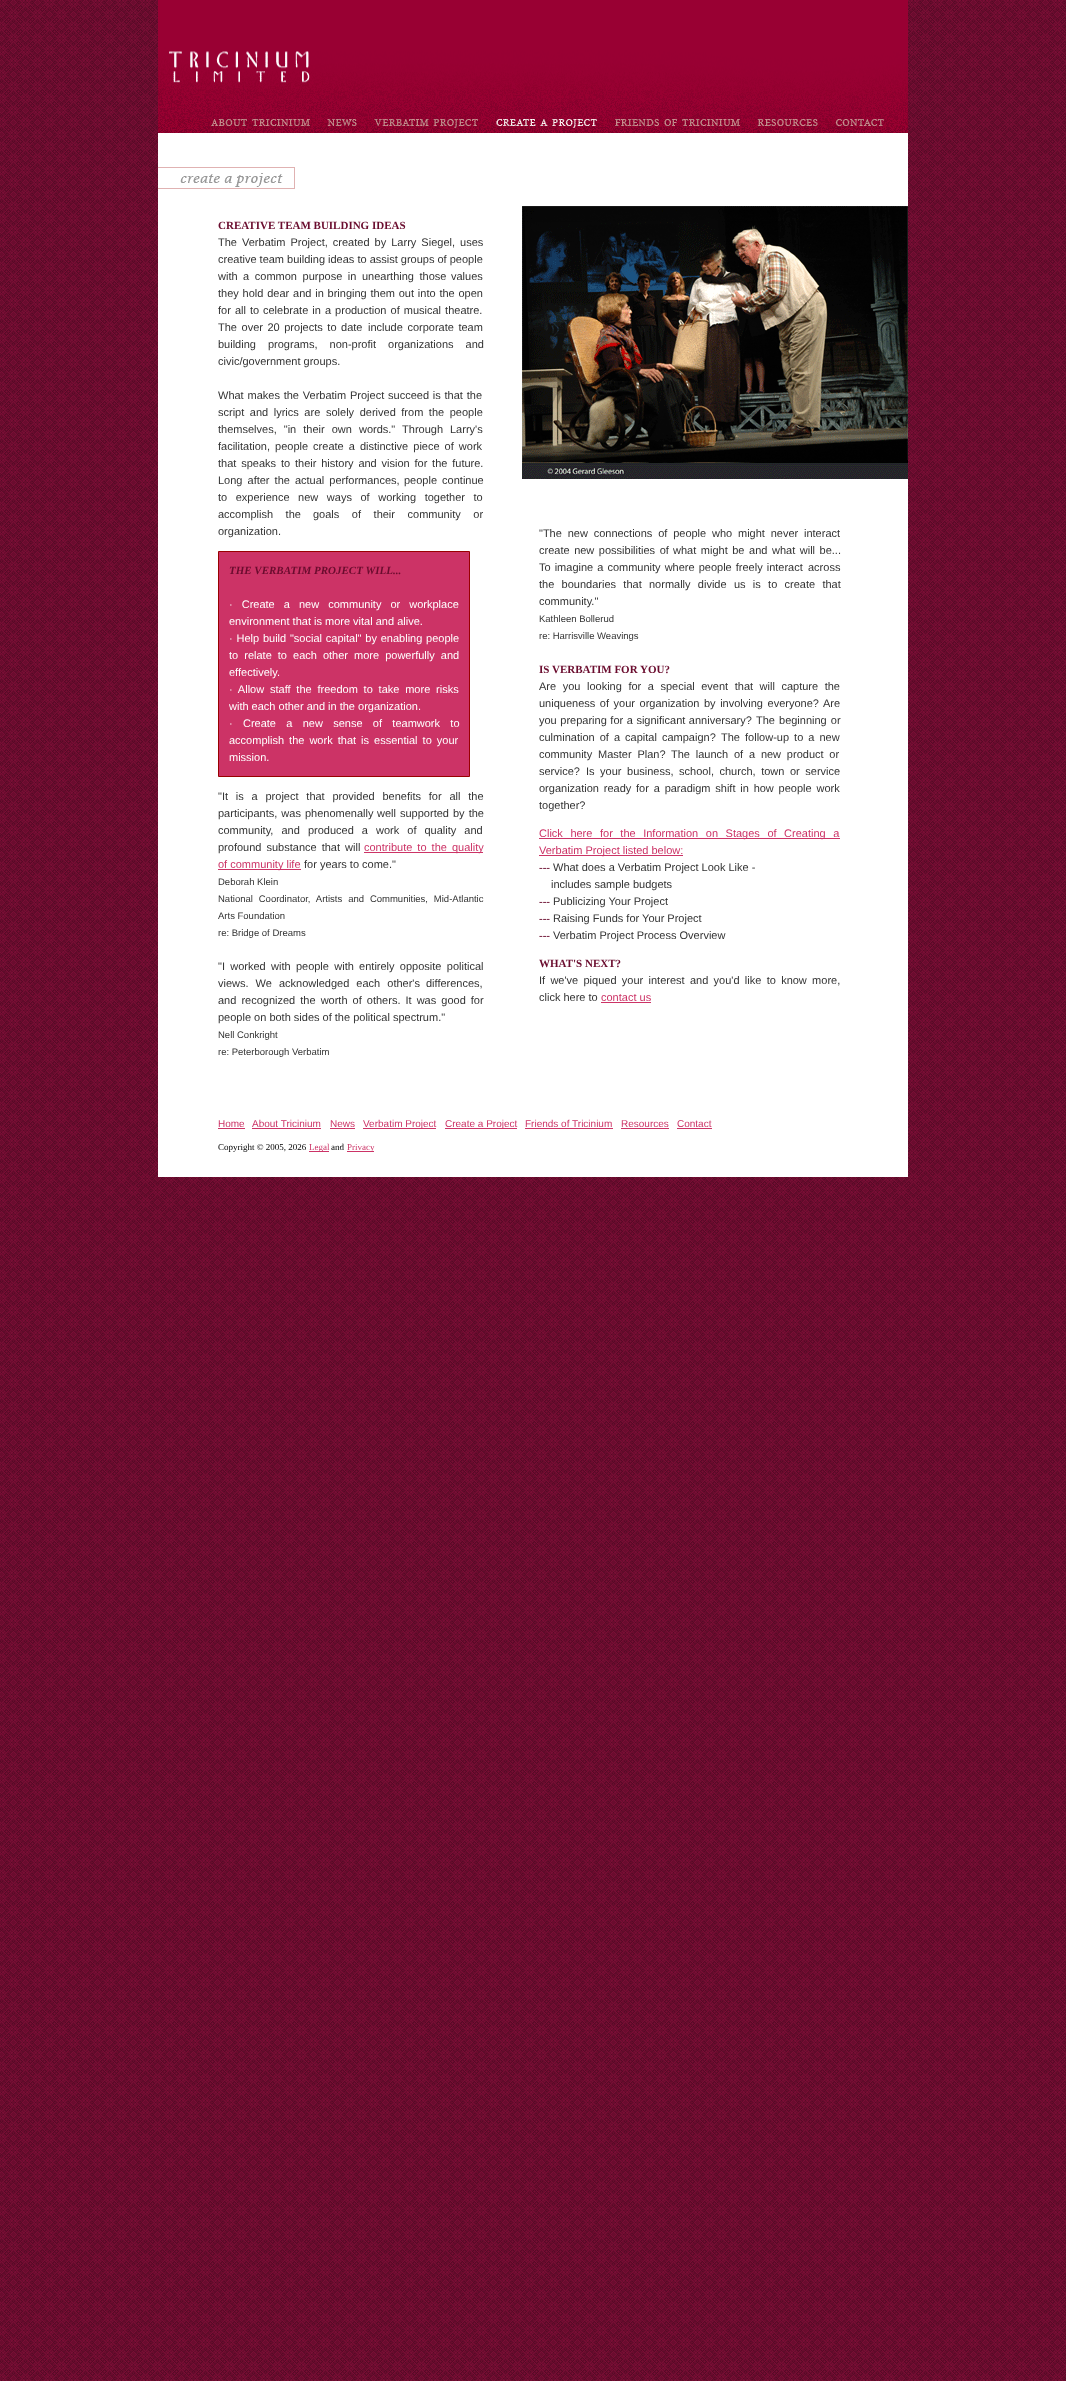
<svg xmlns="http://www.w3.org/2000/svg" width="1066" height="2381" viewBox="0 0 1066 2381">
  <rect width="100%" height="100%" fill="#fff"/>
  <image x="0" y="0" width="1066" height="2381" href="img/1.png"/>
  <image x="158" y="0" width="750" height="97" href="img/2.png"/>
  <image x="158" y="97" width="750" height="22" href="img/3.png"/>
  <image x="158" y="119" width="50" height="31" href="img/4.png"/>
  <image x="208" y="119" width="112" height="31" href="img/5.png"/>
  <image x="320" y="119" width="48" height="31" href="img/6.png"/>
  <image x="368" y="119" width="120" height="31" href="img/7.png"/>
  <image x="488" y="119" width="118" height="31" href="img/8.png"/>
  <image x="606" y="119" width="145" height="31" href="img/9.png"/>
  <image x="751" y="119" width="77" height="31" href="img/10.png"/>
  <image x="828" y="119" width="80" height="31" href="img/11.png"/>
  <path d="M158 150h750v1027H158z" fill="#fff"/>
  <image x="158" y="167" width="137" height="22" href="img/12.png"/>
  <path d="M218.5 551.5h251v225H218.5z" fill="#c36" stroke="#900"/>
  <path d="M364 852h119v1H364z" fill="#c36"/>
  <path d="M218 869h83v1H218z" fill="#c36"/>
  <image x="522" y="206" width="386" height="273" href="img/13.png"/>
  <path d="M539 838h301v1H539z" fill="#c36"/>
  <path d="M539 855h144v1H539z" fill="#c36"/>
  <path d="M601 1002h50v1H601z" fill="#c36"/>
  <path d="M218 1128h27v1H218z" fill="#c36"/>
  <path d="M252 1128h69v1H252z" fill="#c36"/>
  <path d="M330 1128h25v1H330z" fill="#c36"/>
  <path d="M363 1128h73v1H363z" fill="#c36"/>
  <path d="M445 1128h72v1H445z" fill="#c36"/>
  <path d="M525 1128h88v1H525z" fill="#c36"/>
  <path d="M621 1128h48v1H621z" fill="#c36"/>
  <path d="M677 1128h35v1H677z" fill="#c36"/>
  <path d="M309 1151h20v1H309z" fill="#c36"/>
  <path d="M347 1151h27v1H347z" fill="#c36"/>
  <text x="218" y="229" font-family="Liberation Serif" font-size="11" font-weight="bold" fill="#6a0c2e">CREATIVE TEAM BUILDING IDEAS</text>
  <g font-family="Liberation Sans" font-size="11" fill="#333">
    <text x="218" y="246" word-spacing="2">The Verbatim Project, created by Larry Siegel, uses</text>
    <text x="218" y="263">creative team building ideas to assist groups of people</text>
    <text x="218" y="280" word-spacing="2.5">with a common purpose in unearthing those</text>
    <text x="451" y="280">values</text>
    <text x="218" y="297" word-spacing="0.75">they hold dear and in bringing them out into the open</text>
    <text x="218" y="314" word-spacing="1">for all to</text>
    <text x="263" y="314" word-spacing="1">celebrate in a production of musical theatre.</text>
    <text x="218" y="331" word-spacing="1.5">The over 20 projects to date</text>
    <text x="368" y="331" word-spacing="1.5">include corporate team</text>
    <text x="218" y="348" word-spacing="9">building programs, non-profit organizations and</text>
    <text x="218" y="365">civic/government groups.</text>
    <text x="218" y="399" word-spacing="0.75">What makes the Verbatim Project succeed is that the</text>
    <text x="218" y="416" word-spacing="2.5">script and lyrics are</text>
    <text x="326" y="416" word-spacing="2.5">solely derived from the people</text>
    <text x="218" y="433" word-spacing="4">themselves, "in their own words." Through</text>
    <text x="450" y="433">Larry's</text>
    <text x="218" y="450" word-spacing="2">facilitation, people create a distinctive piece of work</text>
    <text x="218" y="467" word-spacing="1.75">that speaks</text>
    <text x="281" y="467" word-spacing="1.75">to their history and vision for the future.</text>
    <text x="218" y="484" word-spacing="2">Long after the actual performances,</text>
    <text x="404" y="484" word-spacing="2">people continue</text>
    <text x="218" y="501" word-spacing="5.5">to experience new ways of working together to</text>
    <text x="218" y="518" word-spacing="9.5">accomplish the</text>
    <text x="313" y="518" word-spacing="9.5">goals of their community or</text>
    <text x="218" y="535">organization.</text>
  </g>
  <text x="229" y="574" font-family="Liberation Serif" font-size="11" font-weight="bold" font-style="italic" fill="#6a0c2e">THE VERBATIM PROJECT WILL...</text>
  <g font-family="Liberation Sans" font-size="11" fill="#fff">
    <text x="229" y="608" word-spacing="6">· Create a new community or workplace</text>
    <text x="229" y="625">environment that is more vital and alive.</text>
    <text x="229" y="642" word-spacing="0.75">· Help build "social capital" by enabling people</text>
    <text x="229" y="659" word-spacing="3">to relate to each other more powerfully and</text>
    <text x="229" y="676">effectively.</text>
    <text x="229" y="693" word-spacing="2.75">· Allow staff the freedom to take more risks</text>
    <text x="229" y="710">with each other and in the organization.</text>
    <text x="229" y="727" word-spacing="7.25">· Create a new sense of teamwork to</text>
    <text x="229" y="744" word-spacing="2">accomplish the work that is essential to your</text>
    <text x="229" y="761">mission.</text>
  </g>
  <g font-family="Liberation Sans" font-size="11" fill="#333">
    <text x="218" y="800" word-spacing="4.75">"It is a project that provided benefits for all the</text>
    <text x="218" y="817" word-spacing="1">participants, was phenomenally</text>
    <text x="377" y="817" word-spacing="1">well supported by the</text>
    <text x="218" y="834" word-spacing="5">community, and produced a work of quality and</text>
    <text x="218" y="851" word-spacing="2">profound substance that will</text>
  </g>
  <g font-family="Liberation Sans" font-size="11" fill="#c36">
    <text x="364" y="851" word-spacing="2">contribute to the quality</text>
    <text x="218" y="868">of community life</text>
  </g>
  <text x="304" y="868" font-family="Liberation Sans" font-size="11" fill="#333">for years to come."</text>
  <g font-family="Liberation Sans" font-size="9.5" fill="#333">
    <text x="218" y="885">Deborah Klein</text>
    <text x="218" y="902" word-spacing="3.25">National Coordinator, Artists and Communities, Mid-Atlantic</text>
    <text x="218" y="919">Arts Foundation</text>
    <text x="218" y="936">re: Bridge of Dreams</text>
  </g>
  <g font-family="Liberation Sans" font-size="11" fill="#333">
    <text x="218" y="970" word-spacing="2.25">"I worked with people with entirely opposite political</text>
    <text x="218" y="987" word-spacing="4">views. We acknowledged each other's</text>
    <text x="426" y="987">differences,</text>
    <text x="218" y="1004" word-spacing="2">and recognized the worth of others. It was good for</text>
    <text x="218" y="1021">people on both sides of the political spectrum."</text>
  </g>
  <g font-family="Liberation Sans" font-size="9.5" fill="#333">
    <text x="218" y="1038">Nell Conkright</text>
    <text x="218" y="1055">re: Peterborough Verbatim</text>
  </g>
  <g font-family="Liberation Sans" font-size="11" fill="#333">
    <text x="539" y="537" word-spacing="2.75">"The new connections of people who might never interact</text>
    <text x="539" y="554" word-spacing="1.5">create new possibilities of</text>
    <text x="673" y="554" word-spacing="1.5">what might be and what will be...</text>
    <text x="539" y="571" word-spacing="1">To imagine a community where people freely interact</text>
    <text x="808" y="571">across</text>
    <text x="539" y="588" word-spacing="4.25">the boundaries that normally divide us is to create that</text>
    <text x="539" y="605">community."</text>
  </g>
  <g font-family="Liberation Sans" font-size="9.5" fill="#333">
    <text x="539" y="622">Kathleen Bollerud</text>
    <text x="539" y="639">re: Harrisville Weavings</text>
  </g>
  <text x="539" y="673" font-family="Liberation Serif" font-size="11" font-weight="bold" fill="#6a0c2e">IS VERBATIM FOR YOU?</text>
  <g font-family="Liberation Sans" font-size="11" fill="#333">
    <text x="539" y="690" word-spacing="3.5">Are you looking for a special event that will capture the</text>
    <text x="539" y="707" word-spacing="1.5">uniqueness of your organization by involving everyone?</text>
    <text x="823" y="707">Are</text>
    <text x="539" y="724" word-spacing="0.5">you preparing for a significant anniversary?</text>
    <text x="756" y="724" word-spacing="1">The beginning or</text>
    <text x="539" y="741" word-spacing="2">culmination of a capital campaign?</text>
    <text x="721" y="741" word-spacing="2">The follow-up to a new</text>
    <text x="539" y="758" word-spacing="2.75">community Master Plan?</text>
    <text x="671" y="758" word-spacing="2.75">The launch of a new product or</text>
    <text x="539" y="775">service?</text>
    <text x="586" y="775" word-spacing="2.5">Is your business, school, church, town or service</text>
    <text x="539" y="792" word-spacing="1.75">organization ready for a paradigm shift in how people work</text>
    <text x="539" y="809">together?</text>
  </g>
  <g font-family="Liberation Sans" font-size="11" fill="#c36">
    <text x="539" y="837" word-spacing="4.5">Click here for the Information on Stages of Creating a</text>
    <text x="539" y="854">Verbatim Project listed below:</text>
  </g>
  <text x="539" y="871" font-family="Liberation Serif" font-size="11" font-weight="bold" fill="#6a0c2e">---</text>
  <g font-family="Liberation Sans" font-size="11" fill="#333">
    <text x="553" y="871">What does a Verbatim Project Look Like -</text>
    <text x="551" y="888">includes sample budgets</text>
  </g>
  <text x="539" y="905" font-family="Liberation Serif" font-size="11" font-weight="bold" fill="#6a0c2e">---</text>
  <text x="553" y="905" font-family="Liberation Sans" font-size="11" fill="#333">Publicizing Your Project</text>
  <text x="539" y="922" font-family="Liberation Serif" font-size="11" font-weight="bold" fill="#6a0c2e">---</text>
  <text x="553" y="922" font-family="Liberation Sans" font-size="11" fill="#333">Raising Funds for Your Project</text>
  <text x="539" y="939" font-family="Liberation Serif" font-size="11" font-weight="bold" fill="#6a0c2e">---</text>
  <text x="553" y="939" font-family="Liberation Sans" font-size="11" fill="#333">Verbatim Project Process Overview</text>
  <text x="539" y="967" font-family="Liberation Serif" font-size="11" font-weight="bold" fill="#6a0c2e">WHAT'S NEXT?</text>
  <g font-family="Liberation Sans" font-size="11" fill="#333">
    <text x="539" y="984" word-spacing="2.25">If we've piqued your interest and you'd like to know more,</text>
    <text x="539" y="1001">click here to</text>
  </g>
  <text x="601" y="1001" font-family="Liberation Sans" font-size="11" fill="#c36">contact us</text>
  <g font-family="Liberation Sans" font-size="10" fill="#c36">
    <text x="218" y="1127">Home</text>
    <text x="252" y="1127">About Tricinium</text>
    <text x="330" y="1127">News</text>
    <text x="363" y="1127">Verbatim Project</text>
    <text x="445" y="1127">Create a Project</text>
    <text x="525" y="1127">Friends of Tricinium</text>
    <text x="621" y="1127">Resources</text>
    <text x="677" y="1127">Contact</text>
  </g>
  <text x="218" y="1150" font-family="Liberation Serif" font-size="9" fill="#000">Copyright © 2005, 2026</text>
  <text x="309" y="1150" font-family="Liberation Serif" font-size="9" fill="#c36">Legal</text>
  <text x="331" y="1150" font-family="Liberation Serif" font-size="9" fill="#000">and</text>
  <text x="347" y="1150" font-family="Liberation Serif" font-size="9" fill="#c36">Privacy</text>
</svg>
